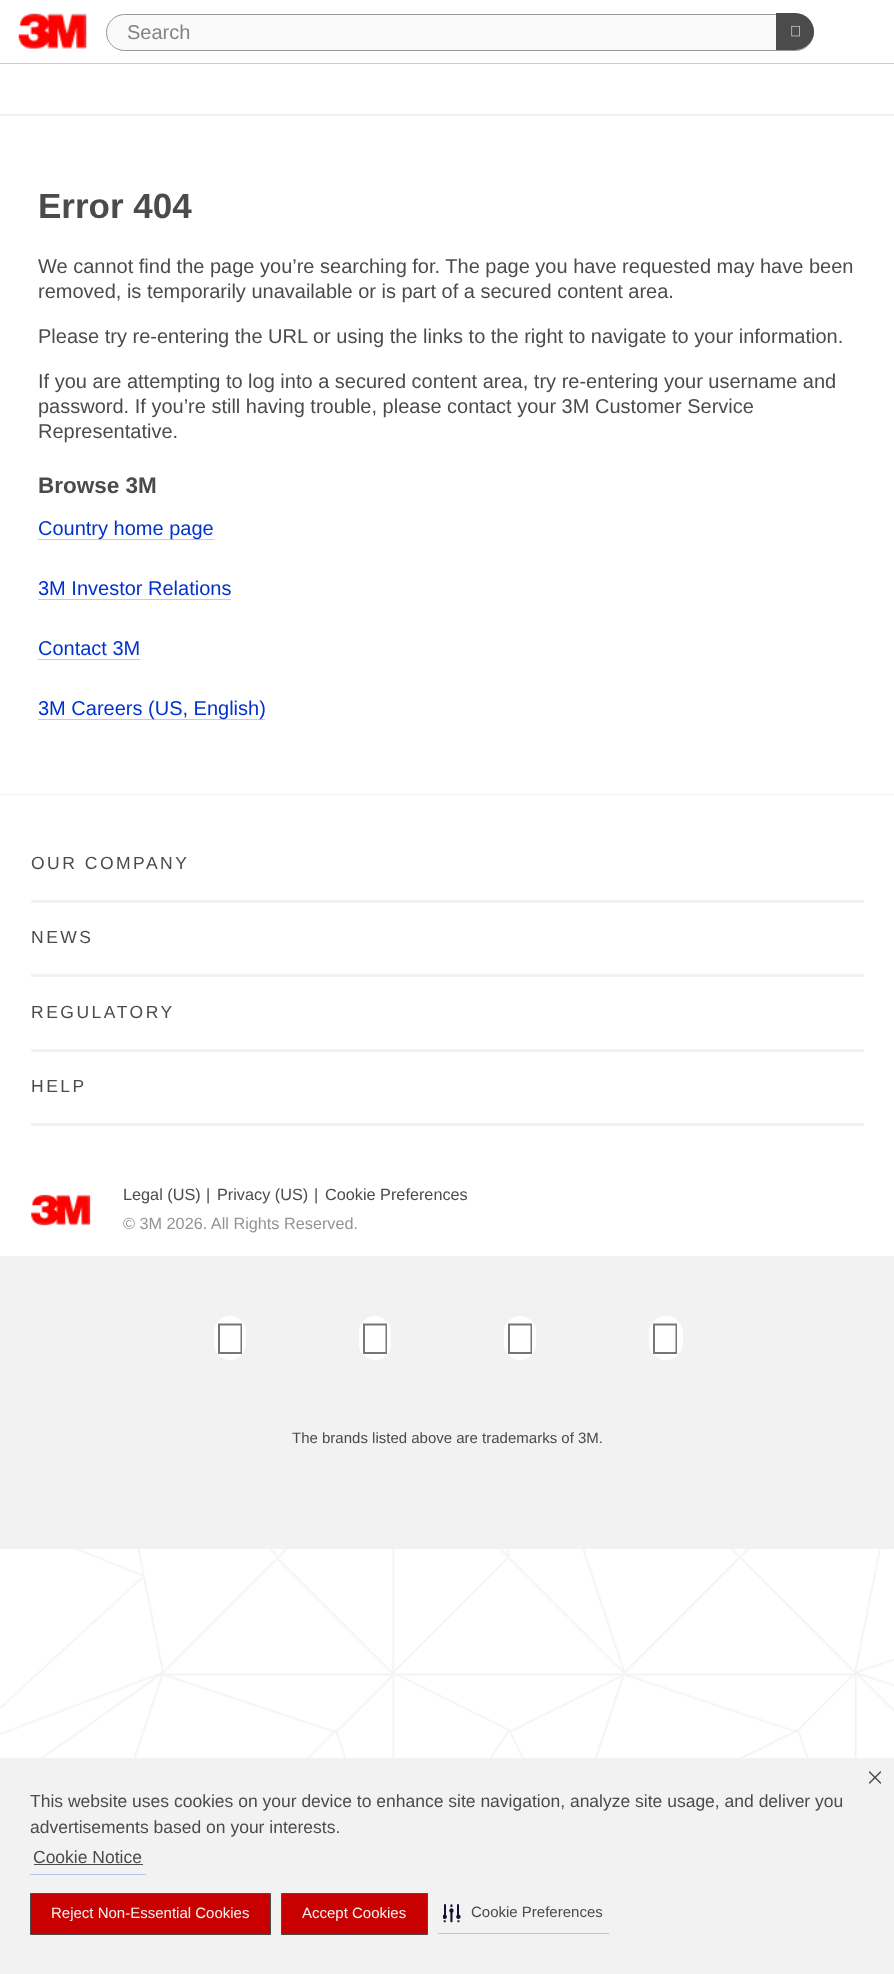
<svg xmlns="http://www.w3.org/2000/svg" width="894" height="1974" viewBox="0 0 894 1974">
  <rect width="100%" height="100%" fill="#fff"/>
  <image x="0" y="1549" width="894" height="209" href="img/1.png"/>
  <path d="M0 114h894v2H0z" fill="#f2f2f2"/>
  <image x="18" y="13" width="69" height="36" href="img/2.png"/>
  <rect x="106.5" y="14.5" width="707" height="36" rx="18" fill="#fafafa" stroke="#979797"/>
  <path d="M776 13H795.5C805.5 13 814 21.5 814 31.5C814 41.5 805.5 50 795.5 50H776Z" fill="#4b4b4b"/>
  <image x="791" y="25" width="9" height="12" href="img/3.png"/>
  <path d="M0 63h894v1H0z" fill="#ccc"/>
  <path d="M38 539h176v1H38z" fill="#bfccf2"/>
  <path d="M38 599h193v1H38z" fill="#bfccf2"/>
  <path d="M38 659h102v1H38z" fill="#bfccf2"/>
  <path d="M38 719h227v1H38z" fill="#bfccf2"/>
  <path d="M0 794h894v1H0z" fill="#f2f2f2"/>
  <path d="M31 900h833v3H31z" fill="#f2f2f2"/>
  <path d="M31 974h833v3H31z" fill="#f2f2f2"/>
  <path d="M31 1049h833v3H31z" fill="#f2f2f2"/>
  <path d="M31 1123h833v3H31z" fill="#f2f2f2"/>
  <image x="31" y="1194" width="60" height="32" href="img/4.png"/>
  <path d="M0 1256h894v293H0z" fill="#f2f2f2"/>
  <rect x="214" y="1316" width="32" height="44" rx="16" fill="#fff"/>
  <path d="M218 1323.5H242V1354H218ZM220 1325.5V1352H240.5V1325.5Z" fill="#767676"/>
  <rect x="359" y="1316" width="32" height="44" rx="16" fill="#fff"/>
  <path d="M363 1323.5H387V1354H363ZM365 1325.5V1352H385.5V1325.5Z" fill="#767676"/>
  <rect x="504" y="1316" width="32" height="44" rx="16" fill="#fff"/>
  <path d="M508 1323.5H532V1354H508ZM510 1325.5V1352H530.5V1325.5Z" fill="#767676"/>
  <rect x="649" y="1316" width="34" height="44" rx="17" fill="#fff"/>
  <path d="M653 1323.5H677V1354H653ZM655 1325.5V1352H675.5V1325.5Z" fill="#767676"/>
  <path d="M0 1758h894v216H0z" fill="#f2f2f2"/>
  <path d="M30 1874h116v1H30z" fill="#b6c2e9"/>
  <path d="M34 1864h109v1H34z" fill="#4b4b4b"/>
  <image x="869" y="1771" width="12" height="13" href="img/5.png"/>
  <path d="M30.5 1893.5h240v41H30.5z" fill="#c80000" stroke="#4b4b4b"/>
  <path d="M281.5 1893.5h146v41H281.5z" fill="#c80000" stroke="#4b4b4b"/>
  <path d="M438 1933h171v1H438z" fill="#b6c2e9"/>
  <image x="443" y="1904" width="18" height="19" href="img/6.png"/>
  <text x="127" y="39" font-family="Liberation Sans" font-size="20" fill="#838383">Search</text>
  <text x="38" y="218" font-family="Liberation Sans" font-size="35" font-weight="bold" fill="#4b4b4b">Error 404</text>
  <g font-family="Liberation Sans" font-size="20" fill="#4b4b4b">
    <text x="38" y="273">We cannot find the page you’re searching for. The page you have requested may have been</text>
    <text x="38" y="298">removed, is temporarily unavailable or is part of a secured content area.</text>
    <text x="38" y="343">Please try re-entering the URL or using the links to the right to navigate to your information.</text>
    <text x="38" y="388">If you are attempting to log into a secured content area, try re-entering your username and</text>
    <text x="38" y="413">password. If you’re still having trouble, please contact your 3M Customer Service</text>
    <text x="38" y="438">Representative.</text>
  </g>
  <text x="38" y="493" font-family="Liberation Sans" font-size="22.5" font-weight="bold" fill="#4b4b4b">Browse 3M</text>
  <g font-family="Liberation Sans" font-size="20" fill="#03c">
    <text x="38" y="535">Country home page</text>
    <text x="38" y="595">3M Investor Relations</text>
    <text x="38" y="655">Contact 3M</text>
    <text x="38" y="715">3M Careers (US, English)</text>
  </g>
  <g font-family="Liberation Sans" font-size="17.5" letter-spacing="2.5" fill="#4b4b4b">
    <text x="31" y="869">OUR COMPANY</text>
    <text x="31" y="943">NEWS</text>
    <text x="31" y="1018">REGULATORY</text>
    <text x="31" y="1092">HELP</text>
  </g>
  <g font-family="Liberation Sans" font-size="16.25" fill="#4b4b4b">
    <text x="123" y="1200">Legal (US)</text>
    <text x="206" y="1200">|</text>
    <text x="217" y="1200">Privacy (US)</text>
    <text x="314" y="1200">|</text>
    <text x="325" y="1200">Cookie Preferences</text>
  </g>
  <text x="123" y="1229" font-family="Liberation Sans" font-size="16.25" fill="#939393">© 3M 2026. All Rights Reserved.</text>
  <text x="292" y="1443" font-family="Liberation Sans" font-size="15" fill="#4b4b4b">The brands listed above are trademarks of 3M.</text>
  <g font-family="Liberation Sans" font-size="17.5" fill="#4b4b4b">
    <text x="30" y="1807">This website uses cookies on your device to enhance site navigation, analyze site usage, and deliver you</text>
    <text x="30" y="1833">advertisements based on your interests.</text>
    <text x="33" y="1863">Cookie Notice</text>
  </g>
  <g font-family="Liberation Sans" font-size="15" fill="#f2f2f2">
    <text x="51" y="1918">Reject Non-Essential Cookies</text>
    <text x="302" y="1918">Accept Cookies</text>
  </g>
  <text x="471" y="1917" font-family="Liberation Sans" font-size="15" fill="#4b4b4b">Cookie Preferences</text>
</svg>
